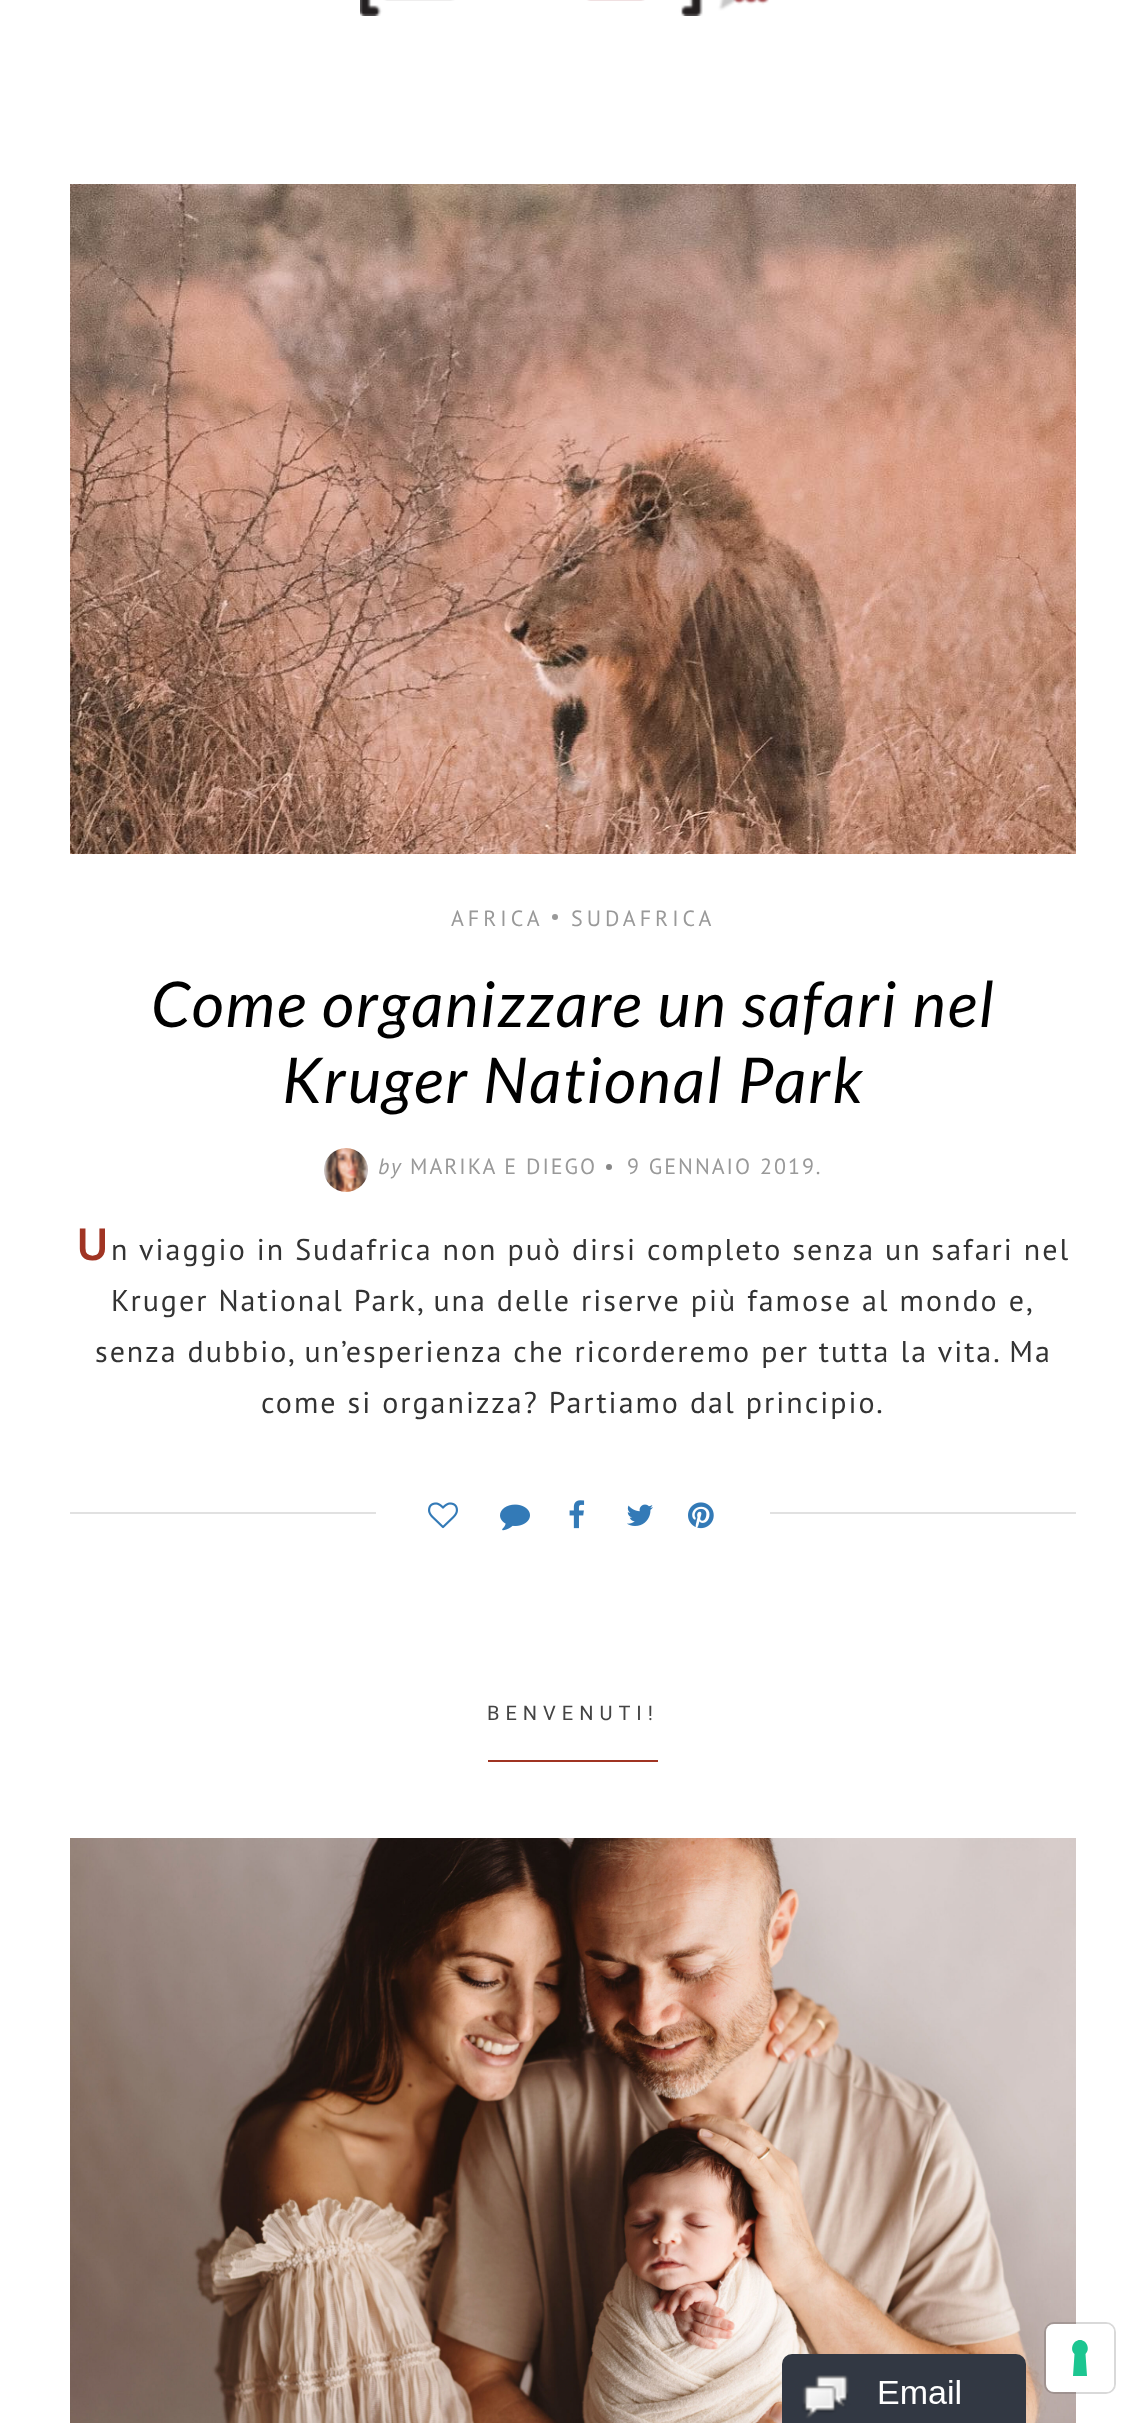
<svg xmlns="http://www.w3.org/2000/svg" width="1146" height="2423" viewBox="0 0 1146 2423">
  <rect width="100%" height="100%" fill="#fff"/>
  <image x="360" y="0" width="409" height="16" href="img/1.png"/>
  <image x="70" y="184" width="1006" height="670" href="img/2.png"/>
  <circle cx="555" cy="917" r="3" fill="#999"/>
  <image x="324" y="1148" width="44" height="44" href="img/3.png"/>
  <circle cx="609" cy="1167" r="3" fill="#888"/>
  <path d="M70 1512h1006v2H70z" fill="#e1e1e1"/>
  <path d="M376 1512h394v2H376z" fill="#fff"/>
  <image x="428" y="1502" width="30" height="27" href="img/4.png"/>
  <image x="500" y="1504" width="30" height="27" href="img/5.png"/>
  <image x="569" y="1500" width="16" height="29" href="img/6.png"/>
  <image x="627" y="1504" width="26" height="22" href="img/7.png"/>
  <image x="688" y="1502" width="26" height="27" href="img/8.png"/>
  <path d="M488 1760h170v2H488z" fill="#a03423"/>
  <image x="70" y="1838" width="1006" height="585" href="img/9.png"/>
  <image x="782" y="2354" width="244" height="69" href="img/10.png"/>
  <rect x="1045" y="2323" width="70" height="70" rx="9" fill="none" stroke="#00000026" stroke-width="2"/>
  <rect x="1046" y="2324" width="68" height="68" rx="8" fill="#fff"/>
  <path d="M1080 2340C1087 2340 1090.5 2349.5 1085.5 2354L1087 2376H1073L1074.5 2354C1069.5 2349.5 1073 2340 1080 2340Z" fill="#1cc691" fill-rule="evenodd"/>
  <g font-family="PT Sans" font-size="22" letter-spacing="4" fill="#999">
    <text x="451" y="926">AFRICA</text>
    <text x="571" y="926">SUDAFRICA</text>
  </g>
  <g font-family="Lato" font-size="63" font-style="italic" letter-spacing="2" fill="#000">
    <text x="151" y="1027">Come organizzare un safari nel</text>
    <text x="282" y="1103">Kruger National Park</text>
  </g>
  <text x="378" y="1174" font-family="PT Sans" font-size="22" font-style="italic" letter-spacing="2" fill="#999">by</text>
  <g font-family="PT Sans" font-size="22" letter-spacing="2" fill="#999">
    <text x="410" y="1174">MARIKA E DIEGO</text>
    <text x="627" y="1174">9 GENNAIO 2019</text>
  </g>
  <text x="816" y="1174" font-family="PT Sans" font-size="22" font-style="italic" letter-spacing="2" fill="#999">.</text>
  <text x="76" y="1260" font-family="Noto Sans" font-size="44" font-weight="600" letter-spacing="2" fill="#a03423">U</text>
  <g font-family="PT Sans" font-size="30" letter-spacing="2" fill="#333">
    <text x="111" y="1260">n viaggio in Sudafrica non può dirsi completo senza un safari nel</text>
    <text x="111" y="1311">Kruger National Park, una delle riserve più famose al mondo e,</text>
    <text x="95" y="1362">senza dubbio, un’esperienza che ricorderemo per tutta la vita. Ma</text>
    <text x="261" y="1413">come si organizza? Partiamo dal principio.</text>
  </g>
  <text x="487" y="1720" font-family="Roboto" font-size="20" letter-spacing="6" fill="#444">BENVENUTI!</text>
</svg>
